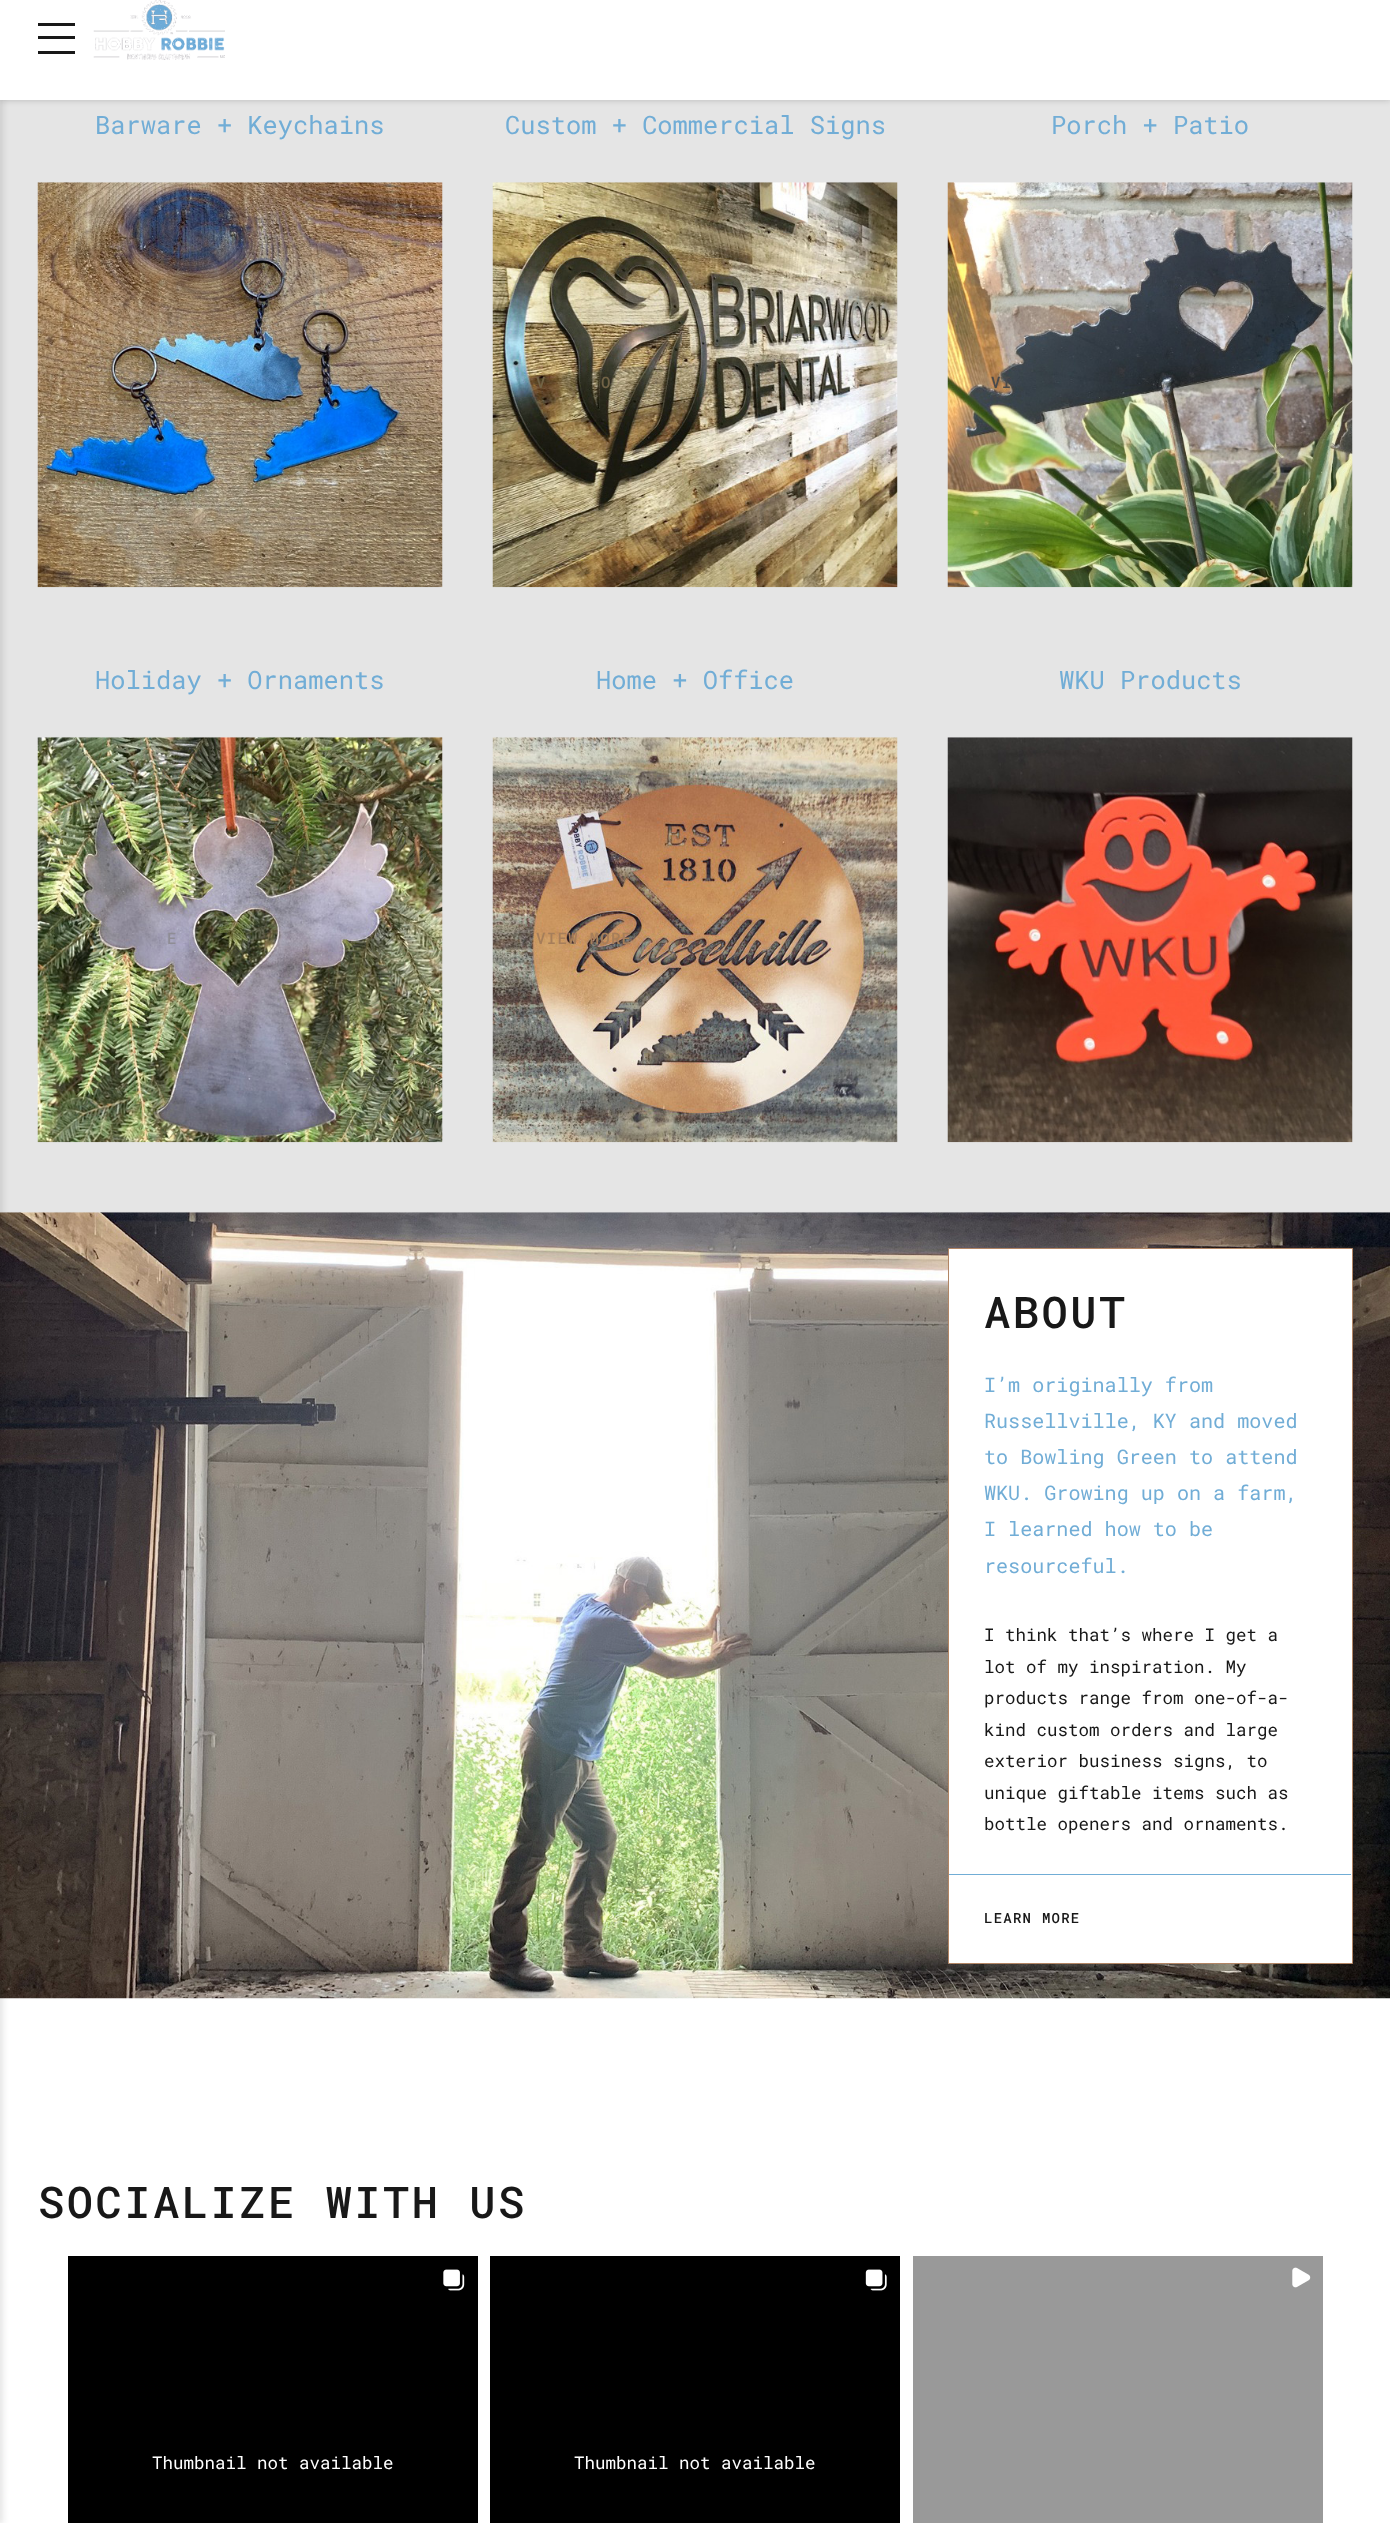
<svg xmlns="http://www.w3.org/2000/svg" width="1390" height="2523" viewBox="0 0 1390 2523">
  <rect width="100%" height="100%" fill="#fff"/>
  <path d="M0 100h1390v1113H0z" fill="#e5e5e5"/>
  <image x="0" y="1212" width="1390" height="787" href="img/8.png"/>
  <path d="M-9 0h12v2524H-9z" fill="#0000001a" filter="blur(3px)"/>
  <path d="M0 0h1390v100H0z" fill="#00000033" filter="blur(3px)"/>
  <path d="M0 0h1390v100H0z" fill="#fff"/>
  <path d="M38 23h37v3H38z" fill="#181818"/>
  <path d="M38 36h37v3H38z" fill="#181818"/>
  <path d="M38 51h37v3H38z" fill="#181818"/>
  <image x="93" y="0" width="132" height="60" href="img/1.png"/>
  <image x="37" y="182" width="406" height="406" href="img/2.png"/>
  <image x="37" y="737" width="406" height="406" href="img/3.png"/>
  <image x="492" y="182" width="406" height="406" href="img/4.png"/>
  <image x="492" y="737" width="406" height="406" href="img/5.png"/>
  <image x="947" y="182" width="406" height="406" href="img/6.png"/>
  <image x="947" y="737" width="406" height="406" href="img/7.png"/>
  <path d="M948.5 1248.5h404v715H948.5z" fill="#fff" stroke="#b28564"/>
  <path d="M949 1874h402v1H949z" fill="#71add6"/>
  <path d="M68 2256h410v267H68z" fill="#000"/>
  <image x="443" y="2269" width="22" height="22" href="img/9.png"/>
  <path d="M490 2256h410v267H490z" fill="#000"/>
  <image x="865" y="2269" width="22" height="22" href="img/10.png"/>
  <path d="M913 2256h410v267H913z" fill="#999"/>
  <image x="1292" y="2267" width="19" height="21" href="img/11.png"/>
  <g font-family="Roboto Mono" font-size="25.4" fill="#71add6">
    <text x="95" y="134">Barware + Keychains</text>
    <text x="95" y="689">Holiday + Ornaments</text>
  </g>
  <text x="167" y="944" font-family="Roboto Mono" font-size="15.75" font-weight="500" letter-spacing="1.25" fill="#8f8d95">E</text>
  <text x="505" y="134" font-family="Roboto Mono" font-size="25.4" fill="#71add6">Custom + Commercial Signs</text>
  <g font-family="Roboto Mono" font-size="15.75" font-weight="500" letter-spacing="1.25" fill="#716346">
    <text x="536" y="388">V</text>
    <text x="601" y="388">O</text>
  </g>
  <text x="596" y="689" font-family="Roboto Mono" font-size="25.4" fill="#71add6">Home + Office</text>
  <text x="536" y="944" font-family="Roboto Mono" font-size="15.75" font-weight="500" letter-spacing="1.25" fill="#a67e5a">VIEW MORE</text>
  <text x="1051" y="134" font-family="Roboto Mono" font-size="25.4" fill="#71add6">Porch + Patio</text>
  <text x="991" y="388" font-family="Roboto Mono" font-size="15.75" font-weight="500" letter-spacing="1.25" fill="#494a4b">VI</text>
  <text x="1059" y="689" font-family="Roboto Mono" font-size="25.4" fill="#71add6">WKU Products</text>
  <text x="984" y="1328" font-family="Roboto Mono" font-size="43.75" font-weight="500" letter-spacing="2.5" fill="#181818">ABOUT</text>
  <g font-family="Roboto Mono" font-size="20.1" fill="#71add6">
    <text x="984" y="1392">I’m originally from</text>
    <text x="984" y="1428">Russellville, KY and moved</text>
    <text x="984" y="1464">to Bowling Green to attend</text>
    <text x="984" y="1500">WKU. Growing up on a farm,</text>
    <text x="984" y="1536">I learned how to be</text>
    <text x="984" y="1573">resourceful.</text>
  </g>
  <g font-family="Roboto Mono" font-size="17.5" fill="#181818">
    <text x="984" y="1641">I think that’s where I get a</text>
    <text x="984" y="1673">lot of my inspiration. My</text>
    <text x="984" y="1704">products range from one-of-a-</text>
    <text x="984" y="1736">kind custom orders and large</text>
    <text x="984" y="1767">exterior business signs, to</text>
    <text x="984" y="1799">unique giftable items such as</text>
    <text x="984" y="1830">bottle openers and ornaments.</text>
  </g>
  <text x="984" y="1923" font-family="Roboto Mono" font-size="14" font-weight="500" letter-spacing="1.25" fill="#181818">LEARN MORE</text>
  <text x="38" y="2218" font-family="Roboto Mono" font-size="43.75" font-weight="500" letter-spacing="2.5" fill="#181818">SOCIALIZE WITH US</text>
  <g font-family="Roboto Mono" font-size="17.5" fill="#fff">
    <text x="152" y="2469">Thumbnail not available</text>
    <text x="574" y="2469">Thumbnail not available</text>
  </g>
</svg>
